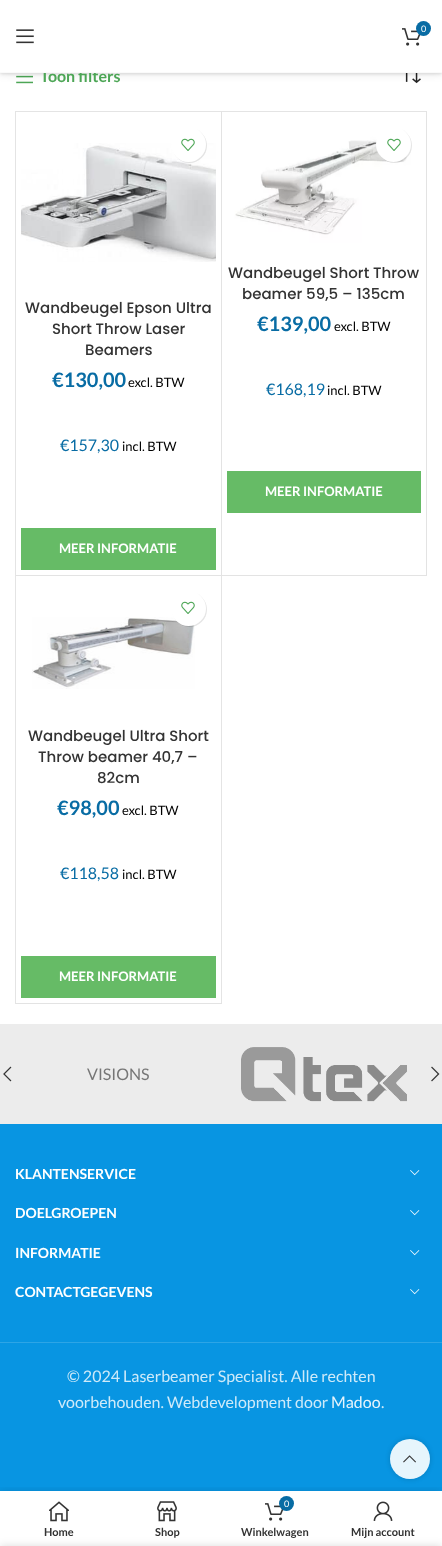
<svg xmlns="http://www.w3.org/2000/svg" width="442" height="1546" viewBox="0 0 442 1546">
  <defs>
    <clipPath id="clip1"><path d="M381 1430H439V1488H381ZM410 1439C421 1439 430 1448 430 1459C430 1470 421 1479 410 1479C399 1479 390 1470 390 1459C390 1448 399 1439 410 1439Z" clip-rule="evenodd"/></clipPath>
    <clipPath id="clip2"><path d="M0 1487h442v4H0z"/></clipPath>
  </defs>
  <rect width="100%" height="100%" fill="#fff"/>
  <image x="16" y="75" width="17" height="9" href="img/3.png"/>
  <image x="405" y="73" width="16" height="11" href="img/4.png"/>
  <path d="M0 1h442v73H0z" fill="#0000001a" filter="blur(1.5px)"/>
  <path d="M0 1h442v73H0z" fill="#0000001a" filter="blur(4px)"/>
  <path d="M15 111h1v893H15z" fill="#e4e4e4"/>
  <path d="M16 111H222L221 112H16Z" fill="#e4e4e4"/>
  <path d="M222 111V576L221 575V112Z" fill="#0000001c"/>
  <path d="M222 576H16V575H221Z" fill="#0000001c"/>
  <image x="21" y="143" width="195" height="119" href="img/6.png"/>
  <rect x="172" y="128" width="35" height="35" rx="17.5" fill="#0000001a" filter="blur(0.5px)"/>
  <circle cx="188.5" cy="144.5" r="17.5" fill="#fff"/>
  <image x="181" y="138" width="14" height="13" href="img/5.png"/>
  <path d="M21 528h195v42H21z" fill="#6b6"/>
  <path d="M222 111H427L426 112H222Z" fill="#e4e4e4"/>
  <path d="M427 111V576L426 575V112Z" fill="#0000001c"/>
  <path d="M427 576H222V575H426Z" fill="#0000001c"/>
  <image x="227" y="117" width="194" height="138" href="img/7.png"/>
  <rect x="377" y="128" width="35" height="35" rx="17.5" fill="#0000001a" filter="blur(0.5px)"/>
  <circle cx="393.5" cy="144.5" r="17.5" fill="#fff"/>
  <image x="387" y="138" width="14" height="13" href="img/5.png"/>
  <path d="M227 471h194v42H227z" fill="#6b6"/>
  <path d="M222 576V1004L221 1003V576Z" fill="#e4e4e4"/>
  <path d="M222 1004H16V1003H221Z" fill="#0000001c"/>
  <image x="32" y="617" width="163" height="72" href="img/8.png"/>
  <rect x="172" y="592" width="35" height="35" rx="17.5" fill="#0000001a" filter="blur(0.5px)"/>
  <circle cx="188.5" cy="608.5" r="17.5" fill="#fff"/>
  <image x="181" y="601" width="14" height="13" href="img/5.png"/>
  <path d="M21 956h195v42H21z" fill="#6b6"/>
  <path d="M0 1024h442v100H0z" fill="#ececec"/>
  <image x="3" y="1066" width="9" height="16" href="img/9.png"/>
  <image x="431" y="1066" width="9" height="16" href="img/10.png"/>
  <image x="241" y="1047" width="166" height="55" href="img/11.png"/>
  <path d="M0 1124h442v367H0z" fill="#0895e2"/>
  <image x="410" y="1170" width="10" height="6" href="img/12.png"/>
  <image x="410" y="1210" width="10" height="6" href="img/12.png"/>
  <image x="410" y="1250" width="10" height="6" href="img/12.png"/>
  <image x="410" y="1289" width="10" height="6" href="img/12.png"/>
  <path d="M0 1342h442v1H0z" fill="#2da5e6"/>
  <g clip-path="url(#clip1)">
    <rect x="390" y="1439" width="40" height="40" rx="20" fill="#0000002b" filter="blur(2.5px)"/>
  </g>
  <circle cx="410" cy="1459" r="20" fill="#ffffffe6"/>
  <image x="403" y="1455" width="13" height="8" href="img/13.png"/>
  <g clip-path="url(#clip2)">
    <path d="M0 1491h442v55H0z" fill="#0000001f" filter="blur(4.5px)"/>
  </g>
  <image x="49" y="1501" width="20" height="21" href="img/14.png"/>
  <image x="157" y="1501" width="20" height="21" href="img/15.png"/>
  <image x="265" y="1503" width="19" height="18" href="img/2.png"/>
  <circle cx="286.5" cy="1503.5" r="7.5" fill="#086ca4"/>
  <image x="373" y="1501" width="20" height="20" href="img/16.png"/>
  <path d="M0 1546h442v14H0z" fill="#00000024" filter="blur(4.5px)"/>
  <text x="40" y="82" font-family="Lato" font-size="16" font-weight="bold" fill="#4da656">Toon filters</text>
  <path d="M0 0h442v72H0z" fill="#fff"/>
  <image x="402" y="28" width="19" height="18" href="img/2.png"/>
  <circle cx="423.5" cy="28.5" r="7.5" fill="#086ca4"/>
  <text x="421" y="32" font-family="Lato" font-size="9" fill="#fff">0</text>
  <image x="16" y="29" width="18" height="15" href="img/1.png"/>
  <path d="M0 72h442v1H0z" fill="#fafafa"/>
  <g font-family="Poppins" font-size="15" font-weight="500" fill="#333">
    <text x="25" y="313">Wandbeugel Epson Ultra</text>
    <text x="52" y="334">Short Throw Laser</text>
    <text x="85" y="355">Beamers</text>
  </g>
  <text x="52" y="387" font-family="Lato" font-size="20" font-weight="bold" fill="#086ca4">€130,00</text>
  <text x="128" y="387" font-family="Lato" font-size="13" fill="#000">excl. BTW</text>
  <text x="60" y="451" font-family="Lato" font-size="16" fill="#086ca4">€157,30</text>
  <text x="122" y="451" font-family="Lato" font-size="13" fill="#000">incl. BTW</text>
  <text x="59" y="553" font-family="Lato" font-size="13" font-weight="bold" fill="#fff">MEER INFORMATIE</text>
  <g font-family="Poppins" font-size="15" font-weight="500" fill="#333">
    <text x="228" y="278">Wandbeugel Short Throw</text>
    <text x="242" y="299">beamer 59,5 – 135cm</text>
  </g>
  <text x="257" y="331" font-family="Lato" font-size="20" font-weight="bold" fill="#086ca4">€139,00</text>
  <text x="334" y="331" font-family="Lato" font-size="13" fill="#000">excl. BTW</text>
  <text x="266" y="395" font-family="Lato" font-size="16" fill="#086ca4">€168,19</text>
  <text x="327" y="395" font-family="Lato" font-size="13" fill="#000">incl. BTW</text>
  <text x="265" y="496" font-family="Lato" font-size="13" font-weight="bold" fill="#fff">MEER INFORMATIE</text>
  <g font-family="Poppins" font-size="15" font-weight="500" fill="#333">
    <text x="28" y="741">Wandbeugel Ultra Short</text>
    <text x="38" y="762">Throw beamer 40,7 –</text>
    <text x="97" y="783">82cm</text>
  </g>
  <text x="57" y="815" font-family="Lato" font-size="20" font-weight="bold" fill="#086ca4">€98,00</text>
  <text x="122" y="815" font-family="Lato" font-size="13" fill="#000">excl. BTW</text>
  <text x="60" y="879" font-family="Lato" font-size="16" fill="#086ca4">€118,58</text>
  <text x="122" y="879" font-family="Lato" font-size="13" fill="#000">incl. BTW</text>
  <text x="59" y="981" font-family="Lato" font-size="13" font-weight="bold" fill="#fff">MEER INFORMATIE</text>
  <text x="87" y="1080" font-family="Lato" font-size="16" fill="#767676">VISIONS</text>
  <g font-family="Lato" font-size="14" font-weight="bold" fill="#fff">
    <text x="15" y="1179">KLANTENSERVICE</text>
    <text x="15" y="1218">DOELGROEPEN</text>
    <text x="15" y="1258">INFORMATIE</text>
    <text x="15" y="1297">CONTACTGEGEVENS</text>
  </g>
  <g font-family="Lato" font-size="16" fill="#ceeaf9">
    <text x="67" y="1382">© 2024 Laserbeamer Specialist. Alle rechten</text>
    <text x="58" y="1408">voorbehouden. Webdevelopment door</text>
  </g>
  <text x="331" y="1408" font-family="Lato" font-size="16" fill="#e6f4fc">Madoo</text>
  <text x="381" y="1408" font-family="Lato" font-size="16" fill="#ceeaf9">.</text>
  <g font-family="Lato" font-size="11" font-weight="bold" fill="#333">
    <text x="44" y="1536">Home</text>
    <text x="155" y="1536">Shop</text>
  </g>
  <text x="284" y="1507" font-family="Lato" font-size="9" fill="#fff">0</text>
  <g font-family="Lato" font-size="11" font-weight="bold" fill="#333">
    <text x="241" y="1536">Winkelwagen</text>
    <text x="351" y="1536">Mijn account</text>
  </g>
</svg>
